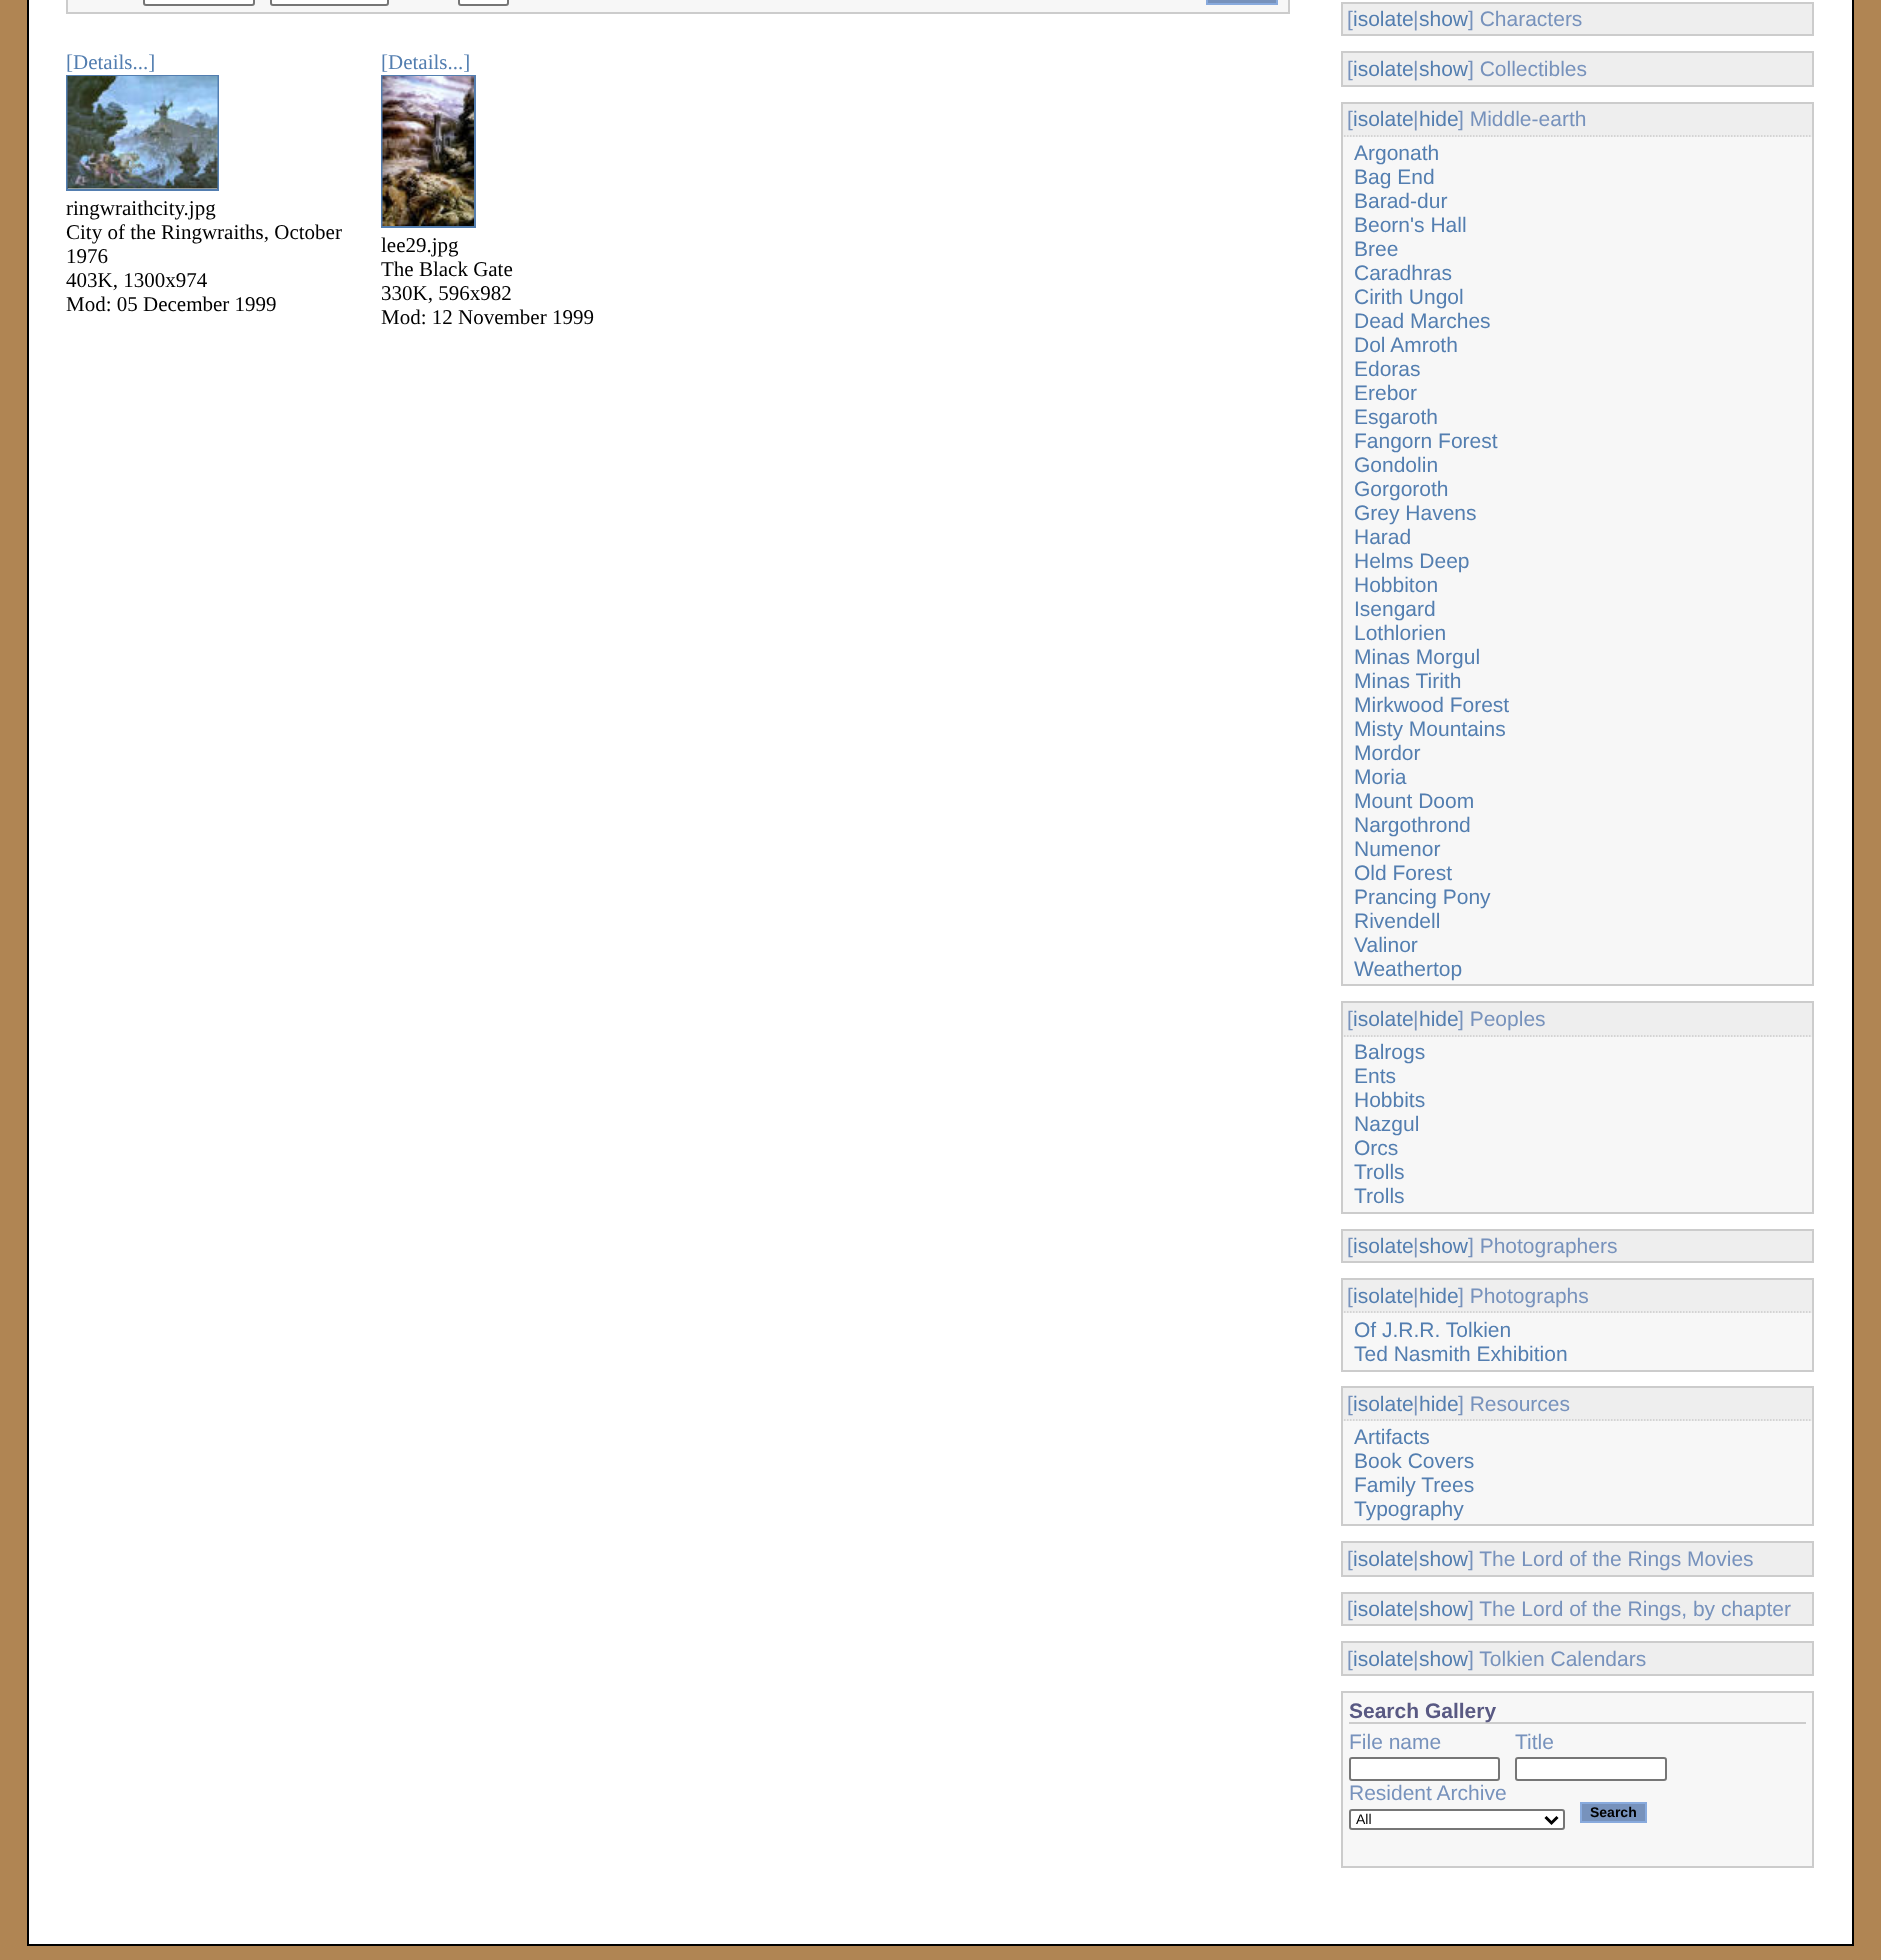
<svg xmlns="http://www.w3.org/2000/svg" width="1881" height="1960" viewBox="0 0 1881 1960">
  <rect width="100%" height="100%" fill="#b08553"/>
  <path d="M28 -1h1825v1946H28z" fill="#fff" stroke="#000" stroke-width="2"/>
  <path d="M67 -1h1222v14H67z" fill="#f7f7f7" stroke="#ccc" stroke-width="2"/>
  <rect x="144" y="-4" width="110" height="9" rx="2" fill="#fff" stroke="#767676" stroke-width="2"/>
  <rect x="271" y="-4" width="117" height="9" rx="2" fill="#fff" stroke="#767676" stroke-width="2"/>
  <rect x="459" y="-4" width="49" height="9" rx="2" fill="#fff" stroke="#767676" stroke-width="2"/>
  <path d="M1207 -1h70v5H1207z" fill="#7792bc" stroke="#8ad" stroke-width="2"/>
  <path d="M67 76h151v114H67z" fill="none" stroke="#537eb0" stroke-width="2"/>
  <image x="67" y="76" width="151" height="113" href="img/1.png"/>
  <path d="M382 76h93v151H382z" fill="none" stroke="#537eb0" stroke-width="2"/>
  <image x="382" y="76" width="92" height="150" href="img/2.png"/>
  <path d="M1342 3h471v32H1342z" fill="#eee" stroke="#ccc" stroke-width="2"/>
  <path d="M1342 52h471v34H1342z" fill="#eee" stroke="#ccc" stroke-width="2"/>
  <path d="M1343 104h469v33H1343z" fill="#eee"/>
  <path d="M1341 102h473v2H1341z" fill="#ccc"/>
  <path d="M1812 102h2v884H1812z" fill="#ccc"/>
  <path d="M1341 136H1813.5" fill="none" stroke="#ccc" stroke-width="1.5" stroke-dasharray="1.5 1.5"/>
  <path d="M1341 102h2v35H1341z" fill="#ccc"/>
  <path d="M1343 137h469v847H1343z" fill="#f7f7f7"/>
  <path d="M1341 984h473v2H1341z" fill="#ccc"/>
  <path d="M1341 137h2v849H1341z" fill="#ccc"/>
  <path d="M1343 1003h469v34H1343z" fill="#eee"/>
  <path d="M1341 1001h473v2H1341z" fill="#ccc"/>
  <path d="M1812 1001h2v213H1812z" fill="#ccc"/>
  <path d="M1341 1036H1813.5" fill="none" stroke="#ccc" stroke-width="1.5" stroke-dasharray="1.5 1.5"/>
  <path d="M1341 1001h2v36H1341z" fill="#ccc"/>
  <path d="M1343 1037h469v175H1343z" fill="#f7f7f7"/>
  <path d="M1341 1212h473v2H1341z" fill="#ccc"/>
  <path d="M1341 1037h2v177H1341z" fill="#ccc"/>
  <path d="M1342 1230h471v32H1342z" fill="#eee" stroke="#ccc" stroke-width="2"/>
  <path d="M1343 1280h469v33H1343z" fill="#eee"/>
  <path d="M1341 1278h473v2H1341z" fill="#ccc"/>
  <path d="M1812 1278h2v93H1812z" fill="#ccc"/>
  <path d="M1341 1312H1813.5" fill="none" stroke="#ccc" stroke-width="1.5" stroke-dasharray="1.5 1.5"/>
  <path d="M1341 1278h2v35H1341z" fill="#ccc"/>
  <path d="M1343 1313h469v57H1343z" fill="#f7f7f7"/>
  <path d="M1341 1370h473v2H1341z" fill="#ccc"/>
  <path d="M1341 1313h2v58H1341z" fill="#ccc"/>
  <path d="M1343 1388h469v33H1343z" fill="#eee"/>
  <path d="M1341 1386h473v2H1341z" fill="#ccc"/>
  <path d="M1812 1386h2v140H1812z" fill="#ccc"/>
  <path d="M1341 1420H1813.5" fill="none" stroke="#ccc" stroke-width="1.5" stroke-dasharray="1.5 1.5"/>
  <path d="M1341 1386h2v35H1341z" fill="#ccc"/>
  <path d="M1343 1421h469v103H1343z" fill="#f7f7f7"/>
  <path d="M1341 1524h473v2H1341z" fill="#ccc"/>
  <path d="M1341 1421h2v105H1341z" fill="#ccc"/>
  <path d="M1342 1542h471v34H1342z" fill="#eee" stroke="#ccc" stroke-width="2"/>
  <path d="M1342 1593h471v32H1342z" fill="#eee" stroke="#ccc" stroke-width="2"/>
  <path d="M1342 1642h471v33H1342z" fill="#eee" stroke="#ccc" stroke-width="2"/>
  <path d="M1342 1692h471v175H1342z" fill="#f7f7f7" stroke="#ccc" stroke-width="2"/>
  <path d="M1349 1722h457v2H1349z" fill="#ccc"/>
  <rect x="1350" y="1758" width="149" height="22" rx="2" fill="#fff" stroke="#767676" stroke-width="2"/>
  <rect x="1516" y="1758" width="150" height="22" rx="2" fill="#fff" stroke="#767676" stroke-width="2"/>
  <rect x="1350" y="1810" width="214" height="19" rx="2" fill="#fff" stroke="#767676" stroke-width="2"/>
  <path d="M1545.5 1817L1551.5 1823L1557.5 1817" fill="none" stroke="#000" stroke-width="3"/>
  <path d="M1581 1803h65v19H1581z" fill="#7792bc" stroke="#8ad" stroke-width="2"/>
  <text x="66" y="69" font-family="Liberation Serif" font-size="21" fill="#537eb0">[Details...]</text>
  <g font-family="Liberation Serif" font-size="21" fill="#000">
    <text x="66" y="215">ringwraithcity.jpg</text>
    <text x="66" y="239">City of the Ringwraiths, October</text>
    <text x="66" y="263">1976</text>
    <text x="66" y="287">403K, 1300x974</text>
    <text x="66" y="311">Mod: 05 December 1999</text>
  </g>
  <text x="381" y="69" font-family="Liberation Serif" font-size="21" fill="#537eb0">[Details...]</text>
  <g font-family="Liberation Serif" font-size="21" fill="#000">
    <text x="381" y="252">lee29.jpg</text>
    <text x="381" y="276">The Black Gate</text>
    <text x="381" y="300">330K, 596x982</text>
    <text x="381" y="324">Mod: 12 November 1999</text>
  </g>
  <text x="1347" y="26" font-family="Liberation Sans" font-size="21" fill="#7792bc">[</text>
  <text x="1353" y="26" font-family="Liberation Sans" font-size="21" fill="#537eb0">isolate</text>
  <text x="1413" y="26" font-family="Liberation Sans" font-size="21" fill="#7792bc">|</text>
  <text x="1419" y="26" font-family="Liberation Sans" font-size="21" fill="#537eb0">show</text>
  <g font-family="Liberation Sans" font-size="21" fill="#7792bc">
    <text x="1468" y="26">] Characters</text>
    <text x="1347" y="76">[</text>
  </g>
  <text x="1353" y="76" font-family="Liberation Sans" font-size="21" fill="#537eb0">isolate</text>
  <text x="1413" y="76" font-family="Liberation Sans" font-size="21" fill="#7792bc">|</text>
  <text x="1419" y="76" font-family="Liberation Sans" font-size="21" fill="#537eb0">show</text>
  <g font-family="Liberation Sans" font-size="21" fill="#7792bc">
    <text x="1468" y="76">] Collectibles</text>
    <text x="1347" y="126">[</text>
  </g>
  <text x="1353" y="126" font-family="Liberation Sans" font-size="21" fill="#537eb0">isolate</text>
  <text x="1413" y="126" font-family="Liberation Sans" font-size="21" fill="#7792bc">|</text>
  <text x="1419" y="126" font-family="Liberation Sans" font-size="21" fill="#537eb0">hide</text>
  <text x="1458" y="126" font-family="Liberation Sans" font-size="21" fill="#7792bc">] Middle-earth</text>
  <g font-family="Liberation Sans" font-size="21" fill="#537eb0">
    <text x="1354" y="160">Argonath</text>
    <text x="1354" y="184">Bag End</text>
    <text x="1354" y="208">Barad-dur</text>
    <text x="1354" y="232">Beorn's Hall</text>
    <text x="1354" y="256">Bree</text>
    <text x="1354" y="280">Caradhras</text>
    <text x="1354" y="304">Cirith Ungol</text>
    <text x="1354" y="328">Dead Marches</text>
    <text x="1354" y="352">Dol Amroth</text>
    <text x="1354" y="376">Edoras</text>
    <text x="1354" y="400">Erebor</text>
    <text x="1354" y="424">Esgaroth</text>
    <text x="1354" y="448">Fangorn Forest</text>
    <text x="1354" y="472">Gondolin</text>
    <text x="1354" y="496">Gorgoroth</text>
    <text x="1354" y="520">Grey Havens</text>
    <text x="1354" y="544">Harad</text>
    <text x="1354" y="568">Helms Deep</text>
    <text x="1354" y="592">Hobbiton</text>
    <text x="1354" y="616">Isengard</text>
    <text x="1354" y="640">Lothlorien</text>
    <text x="1354" y="664">Minas Morgul</text>
    <text x="1354" y="688">Minas Tirith</text>
    <text x="1354" y="712">Mirkwood Forest</text>
    <text x="1354" y="736">Misty Mountains</text>
    <text x="1354" y="760">Mordor</text>
    <text x="1354" y="784">Moria</text>
    <text x="1354" y="808">Mount Doom</text>
    <text x="1354" y="832">Nargothrond</text>
    <text x="1354" y="856">Numenor</text>
    <text x="1354" y="880">Old Forest</text>
    <text x="1354" y="904">Prancing Pony</text>
    <text x="1354" y="928">Rivendell</text>
    <text x="1354" y="952">Valinor</text>
    <text x="1354" y="976">Weathertop</text>
  </g>
  <text x="1347" y="1026" font-family="Liberation Sans" font-size="21" fill="#7792bc">[</text>
  <text x="1353" y="1026" font-family="Liberation Sans" font-size="21" fill="#537eb0">isolate</text>
  <text x="1413" y="1026" font-family="Liberation Sans" font-size="21" fill="#7792bc">|</text>
  <text x="1419" y="1026" font-family="Liberation Sans" font-size="21" fill="#537eb0">hide</text>
  <text x="1458" y="1026" font-family="Liberation Sans" font-size="21" fill="#7792bc">] Peoples</text>
  <g font-family="Liberation Sans" font-size="21" fill="#537eb0">
    <text x="1354" y="1059">Balrogs</text>
    <text x="1354" y="1083">Ents</text>
    <text x="1354" y="1107">Hobbits</text>
    <text x="1354" y="1131">Nazgul</text>
    <text x="1354" y="1155">Orcs</text>
    <text x="1354" y="1179">Trolls</text>
    <text x="1354" y="1203">Trolls</text>
  </g>
  <text x="1347" y="1253" font-family="Liberation Sans" font-size="21" fill="#7792bc">[</text>
  <text x="1353" y="1253" font-family="Liberation Sans" font-size="21" fill="#537eb0">isolate</text>
  <text x="1413" y="1253" font-family="Liberation Sans" font-size="21" fill="#7792bc">|</text>
  <text x="1419" y="1253" font-family="Liberation Sans" font-size="21" fill="#537eb0">show</text>
  <g font-family="Liberation Sans" font-size="21" fill="#7792bc">
    <text x="1468" y="1253">] Photographers</text>
    <text x="1347" y="1303">[</text>
  </g>
  <text x="1353" y="1303" font-family="Liberation Sans" font-size="21" fill="#537eb0">isolate</text>
  <text x="1413" y="1303" font-family="Liberation Sans" font-size="21" fill="#7792bc">|</text>
  <text x="1419" y="1303" font-family="Liberation Sans" font-size="21" fill="#537eb0">hide</text>
  <text x="1458" y="1303" font-family="Liberation Sans" font-size="21" fill="#7792bc">] Photographs</text>
  <g font-family="Liberation Sans" font-size="21" fill="#537eb0">
    <text x="1354" y="1337">Of J.R.R. Tolkien</text>
    <text x="1354" y="1361">Ted Nasmith Exhibition</text>
  </g>
  <text x="1347" y="1411" font-family="Liberation Sans" font-size="21" fill="#7792bc">[</text>
  <text x="1353" y="1411" font-family="Liberation Sans" font-size="21" fill="#537eb0">isolate</text>
  <text x="1413" y="1411" font-family="Liberation Sans" font-size="21" fill="#7792bc">|</text>
  <text x="1419" y="1411" font-family="Liberation Sans" font-size="21" fill="#537eb0">hide</text>
  <text x="1458" y="1411" font-family="Liberation Sans" font-size="21" fill="#7792bc">] Resources</text>
  <g font-family="Liberation Sans" font-size="21" fill="#537eb0">
    <text x="1354" y="1444">Artifacts</text>
    <text x="1354" y="1468">Book Covers</text>
    <text x="1354" y="1492">Family Trees</text>
    <text x="1354" y="1516">Typography</text>
  </g>
  <text x="1347" y="1566" font-family="Liberation Sans" font-size="21" fill="#7792bc">[</text>
  <text x="1353" y="1566" font-family="Liberation Sans" font-size="21" fill="#537eb0">isolate</text>
  <text x="1413" y="1566" font-family="Liberation Sans" font-size="21" fill="#7792bc">|</text>
  <text x="1419" y="1566" font-family="Liberation Sans" font-size="21" fill="#537eb0">show</text>
  <g font-family="Liberation Sans" font-size="21" fill="#7792bc">
    <text x="1468" y="1566">] The Lord of the Rings Movies</text>
    <text x="1347" y="1616">[</text>
  </g>
  <text x="1353" y="1616" font-family="Liberation Sans" font-size="21" fill="#537eb0">isolate</text>
  <text x="1413" y="1616" font-family="Liberation Sans" font-size="21" fill="#7792bc">|</text>
  <text x="1419" y="1616" font-family="Liberation Sans" font-size="21" fill="#537eb0">show</text>
  <g font-family="Liberation Sans" font-size="21" fill="#7792bc">
    <text x="1468" y="1616">] The Lord of the Rings, by chapter</text>
    <text x="1347" y="1666">[</text>
  </g>
  <text x="1353" y="1666" font-family="Liberation Sans" font-size="21" fill="#537eb0">isolate</text>
  <text x="1413" y="1666" font-family="Liberation Sans" font-size="21" fill="#7792bc">|</text>
  <text x="1419" y="1666" font-family="Liberation Sans" font-size="21" fill="#537eb0">show</text>
  <text x="1468" y="1666" font-family="Liberation Sans" font-size="21" fill="#7792bc">] Tolkien Calendars</text>
  <text x="1349" y="1718" font-family="Liberation Sans" font-size="21" font-weight="bold" fill="#595983">Search Gallery</text>
  <g font-family="Liberation Sans" font-size="21" fill="#7792bc">
    <text x="1349" y="1749">File name</text>
    <text x="1515" y="1749">Title</text>
    <text x="1349" y="1800">Resident Archive</text>
  </g>
  <text x="1356" y="1824" font-family="Liberation Sans" font-size="14" fill="#000">All</text>
  <text x="1590" y="1817" font-family="Liberation Sans" font-size="14" font-weight="bold" fill="#000">Search</text>
</svg>
